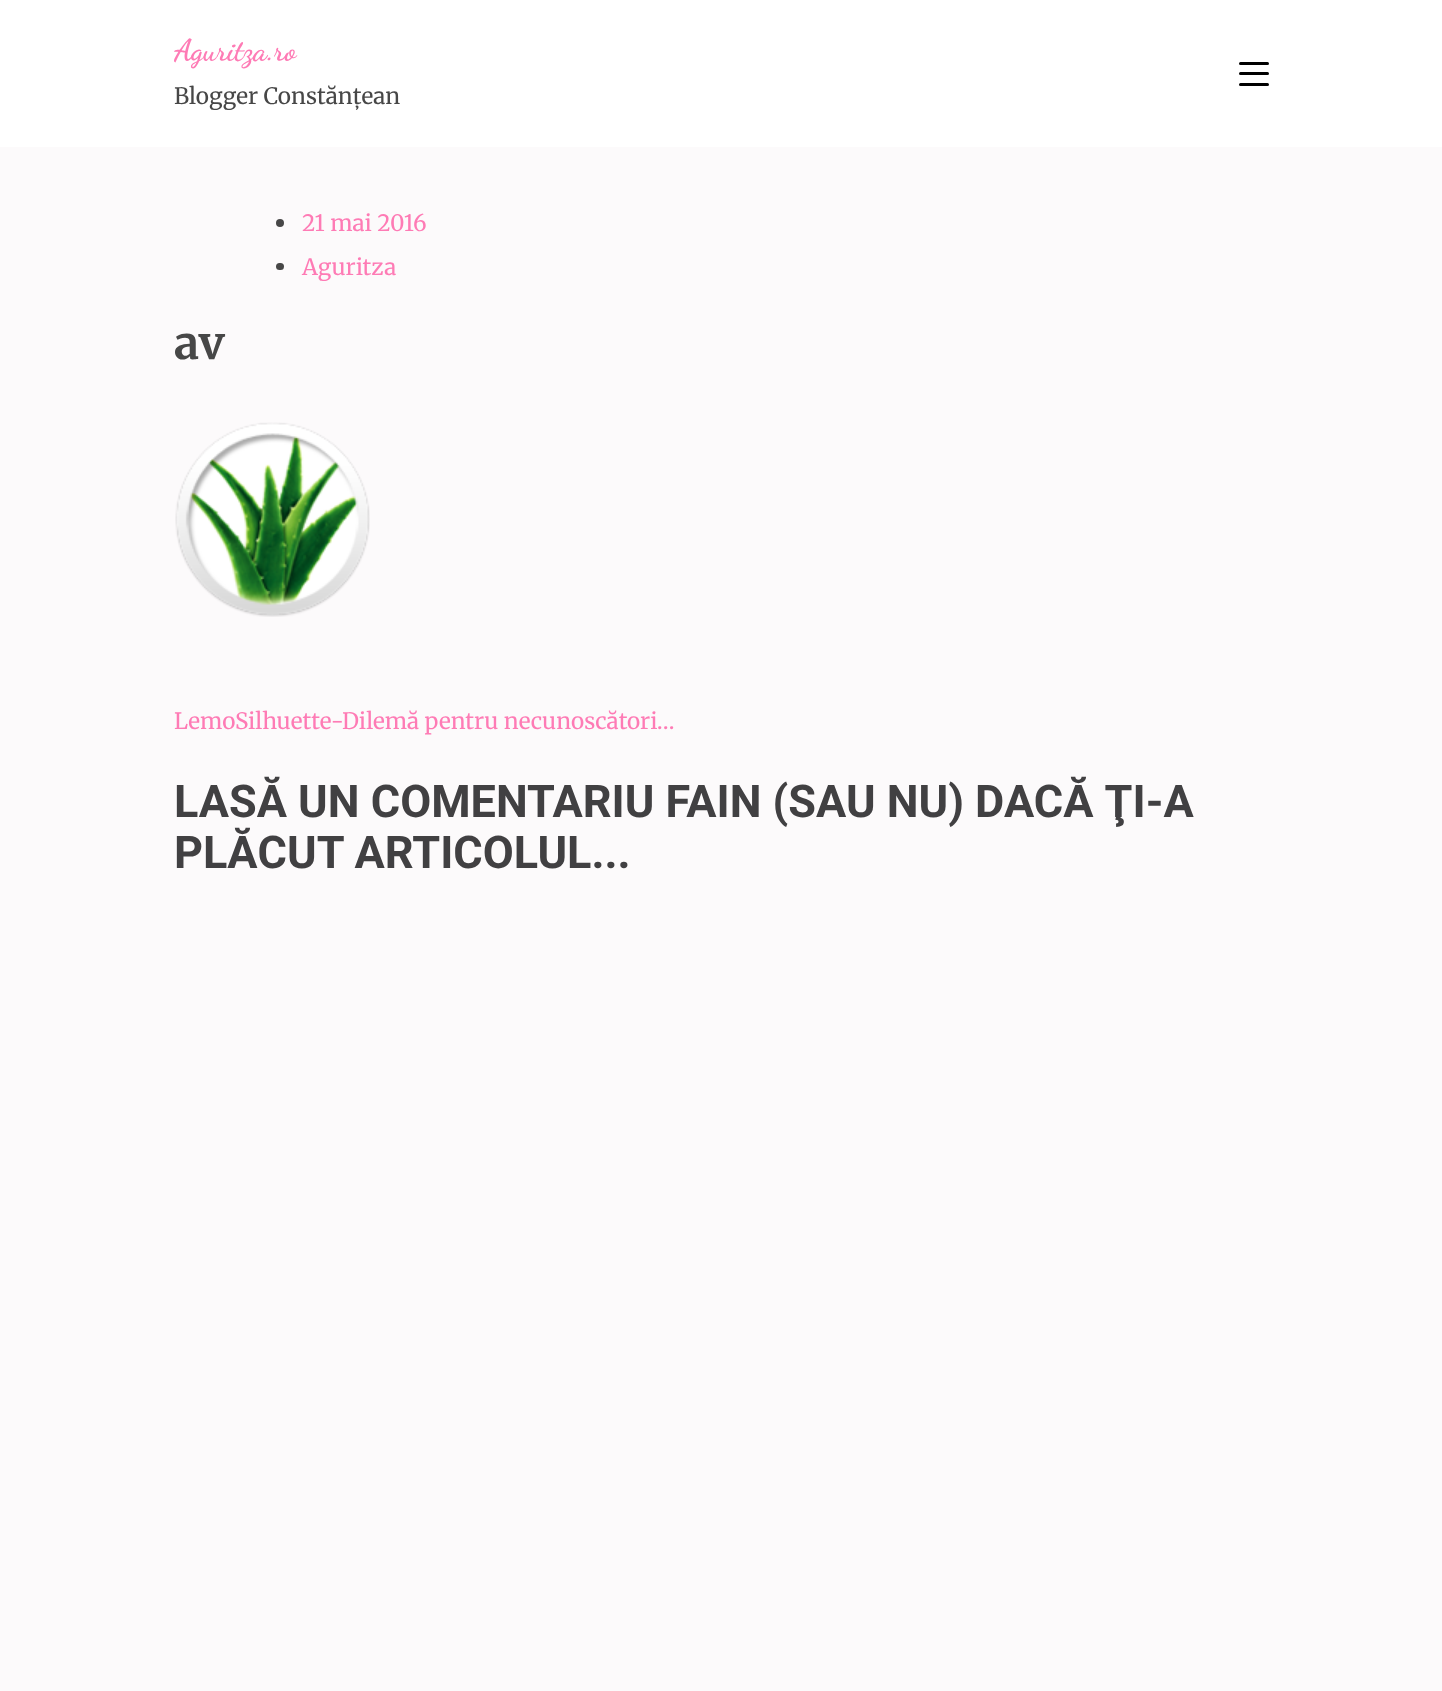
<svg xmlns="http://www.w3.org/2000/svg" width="1442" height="1691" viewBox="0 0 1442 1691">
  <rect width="100%" height="100%" fill="#fcfafb"/>
  <path d="M0 0h1442v147H0z" fill="#fff"/>
  <rect x="1239" y="62" width="30" height="3" rx="1.5" fill="#000"/>
  <rect x="1239" y="72" width="30" height="3" rx="1.5" fill="#000"/>
  <rect x="1239" y="83" width="30" height="3" rx="1.5" fill="#000"/>
  <circle cx="280" cy="223" r="4" fill="#474747"/>
  <rect x="276" y="263" width="8" height="7" rx="3.5" fill="#474747"/>
  <image x="175" y="422" width="195" height="195" href="img/1.png"/>
  <text x="174" y="60" font-family="Dancing Script" font-size="30" font-weight="bold" fill="#fe7bb5">Aguritza.ro</text>
  <text x="174" y="104" font-family="Merriweather" font-size="22.5" fill="#474747">Blogger Constănțean</text>
  <g font-family="Merriweather" font-size="22.5" fill="#fe7bb5">
    <text x="302" y="231">21 mai 2016</text>
    <text x="302" y="275">Aguritza</text>
  </g>
  <text x="174" y="359" font-family="Merriweather" font-size="45" font-weight="bold" fill="#474747">av</text>
  <text x="174" y="729" font-family="Merriweather" font-size="22.5" fill="#fe7bb5">LemoSilhuette-Dilemă pentru necunoscători…</text>
  <g font-family="Roboto" font-size="45" font-weight="bold" fill="#414042">
    <text x="174" y="817">LASĂ UN COMENTARIU FAIN (SAU NU) DACĂ ŢI-A</text>
    <text x="174" y="868">PLĂCUT ARTICOLUL...</text>
  </g>
</svg>
